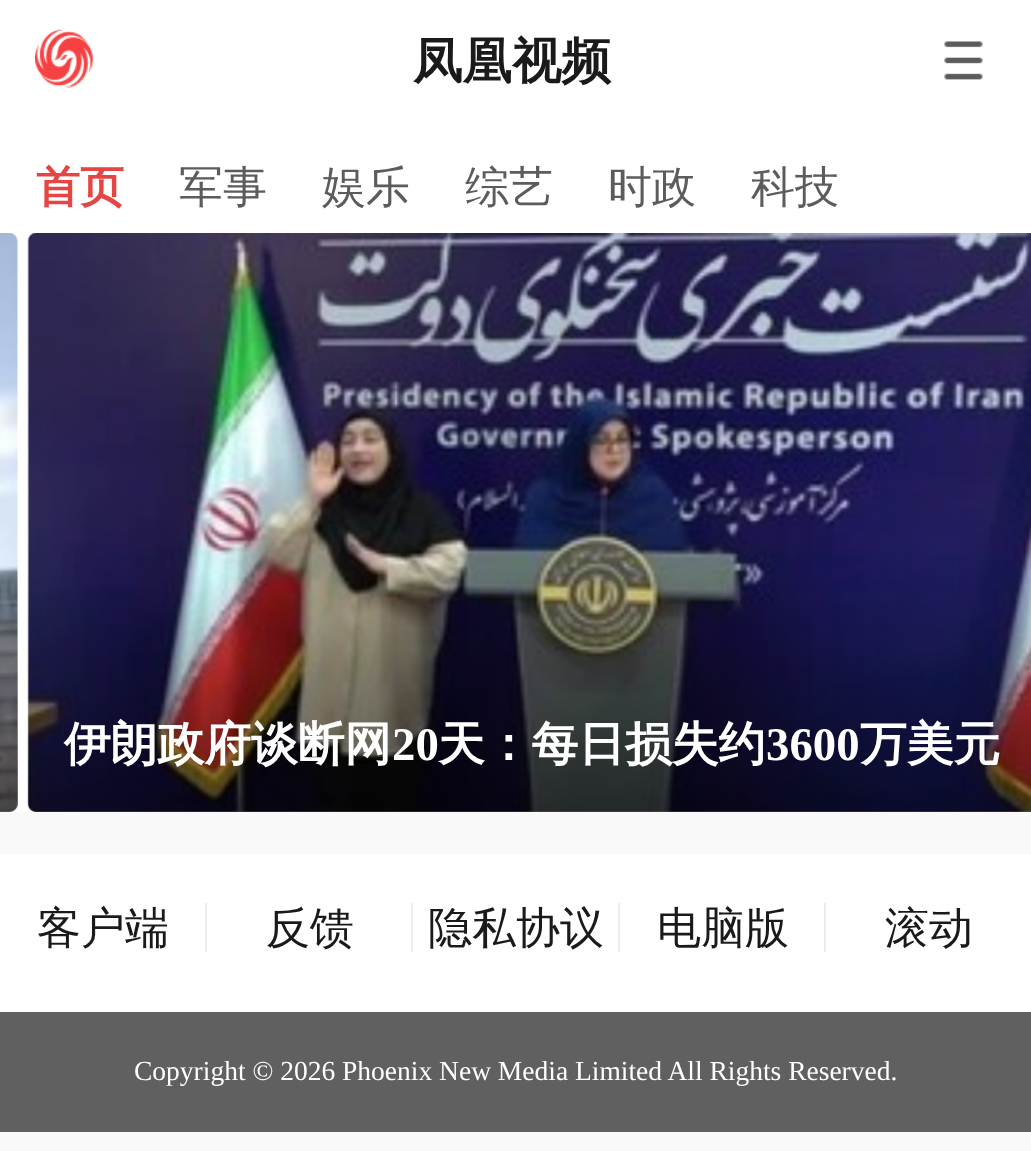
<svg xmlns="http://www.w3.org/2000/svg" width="1031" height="1151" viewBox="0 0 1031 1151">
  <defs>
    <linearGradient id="g1" gradientUnits="userSpaceOnUse" x1="-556" y1="570" x2="-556" y2="812"><stop offset="0" stop-color="#000" stop-opacity="0"/><stop offset="1" stop-color="#000" stop-opacity="0.47"/></linearGradient>
    <linearGradient id="g2" gradientUnits="userSpaceOnUse" x1="602" y1="570" x2="602" y2="812"><stop offset="0" stop-color="#000" stop-opacity="0"/><stop offset="1" stop-color="#000" stop-opacity="0.47"/></linearGradient>
  </defs>
  <rect width="100%" height="100%" fill="#f9f9f9"/>
  <path d="M0 0h1031v812H0z" fill="#fff"/>
  <image x="35" y="29" width="58" height="59" href="img/1.png"/>
  <image x="944" y="41" width="39" height="39" href="img/2.png"/>
  <image x="0" y="233" width="18" height="579" href="img/3.png"/>
  <path d="M0 571H9C14 571 18 575 18 580V803C18 808 14 812 9 812H0Z" fill="url(#g1)"/>
  <image x="27" y="233" width="1004" height="579" href="img/4.png"/>
  <path d="M37 571H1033V812H37C32 812 28 808 28 803V580C28 575 32 571 37 571Z" fill="url(#g2)"/>
  <path d="M0 854h1031v158H0z" fill="#fff"/>
  <path d="M205 903h2v49H205z" fill="#ededed"/>
  <path d="M411 903h2v49H411z" fill="#ededed"/>
  <path d="M618 903h2v49H618z" fill="#ededed"/>
  <path d="M824 903h2v49H824z" fill="#ededed"/>
  <path d="M0 1012h1031v120H0z" fill="#606060"/>
  <text x="413" y="78" font-family="WenQuanYi Zen Hei" font-size="49.5" font-weight="bold" fill="#1a1a1a">凤凰视频</text>
  <text x="36" y="202" font-family="WenQuanYi Zen Hei" font-size="44" font-weight="bold" fill="#e64643">首页</text>
  <g font-family="WenQuanYi Zen Hei" font-size="44" font-weight="500" fill="#5c5c5c">
    <text x="179" y="202">军事</text>
    <text x="322" y="202">娱乐</text>
    <text x="465" y="202">综艺</text>
    <text x="608" y="202">时政</text>
    <text x="751" y="202">科技</text>
  </g>
  <text x="64" y="760" font-family="WenQuanYi Zen Hei" font-size="46.75" font-weight="bold" fill="#fff">伊朗政府谈断网</text>
  <text x="392" y="760" font-family="Liberation Serif" font-size="46.75" font-weight="bold" fill="#fff">20</text>
  <text x="438" y="760" font-family="WenQuanYi Zen Hei" font-size="46.75" font-weight="bold" fill="#fff">天：每日损失约</text>
  <text x="766" y="760" font-family="Liberation Serif" font-size="46.75" font-weight="bold" fill="#fff">3600</text>
  <text x="860" y="760" font-family="WenQuanYi Zen Hei" font-size="46.75" font-weight="bold" fill="#fff">万美元</text>
  <g font-family="WenQuanYi Zen Hei" font-size="44" font-weight="500" fill="#1a1a1a">
    <text x="37" y="943">客户端</text>
    <text x="266" y="943">反馈</text>
    <text x="428" y="943">隐私协议</text>
    <text x="657" y="943">电脑版</text>
    <text x="885" y="943">滚动</text>
  </g>
  <text x="134" y="1080" font-family="Liberation Serif" font-size="27.5" fill="#fff">Copyright © 2026 Phoenix New Media Limited All Rights Reserved.</text>
</svg>
